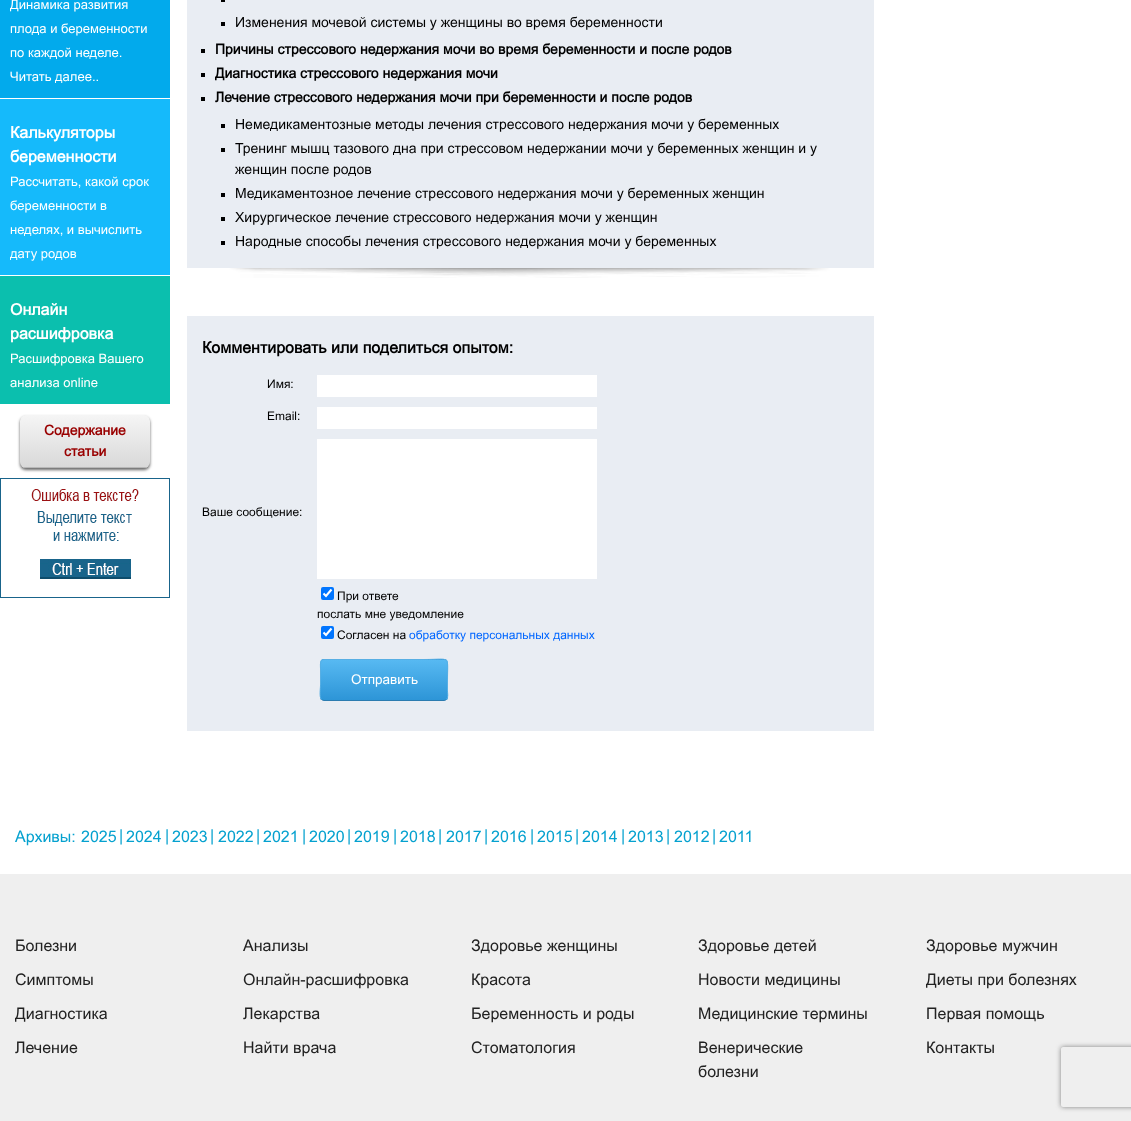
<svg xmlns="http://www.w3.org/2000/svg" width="1131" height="1121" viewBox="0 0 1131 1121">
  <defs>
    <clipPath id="clip1"><rect x="20" y="415" width="130" height="53" rx="6"/></clipPath>
    <linearGradient id="g1" gradientUnits="userSpaceOnUse" x1="85" y1="415" x2="85" y2="467"><stop offset="0" stop-color="#f5f5f5"/><stop offset="1" stop-color="#d9d9d9"/></linearGradient>
    <clipPath id="clip2"><rect x="320" y="659" width="128" height="42" rx="4"/></clipPath>
    <linearGradient id="g2" gradientUnits="userSpaceOnUse" x1="384" y1="620" x2="384" y2="660"><stop offset="0" stop-color="#57b9f2"/><stop offset="1" stop-color="#2d95d7"/></linearGradient>
    <linearGradient id="g3" gradientUnits="userSpaceOnUse" x1="384" y1="660" x2="384" y2="700"><stop offset="0" stop-color="#57b9f2"/><stop offset="1" stop-color="#2d95d7"/></linearGradient>
    <clipPath id="clip3"><path d="M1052 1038H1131V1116H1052ZM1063 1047H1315C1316 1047 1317 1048 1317 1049V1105C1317 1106 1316 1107 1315 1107H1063C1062 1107 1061 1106 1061 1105V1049C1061 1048 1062 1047 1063 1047Z" clip-rule="evenodd"/></clipPath>
  </defs>
  <rect width="100%" height="100%" fill="#fff"/>
  <path d="M0 0h170v98H0z" fill="#02aaec"/>
  <path d="M0 99h170v176H0z" fill="#15bafb"/>
  <path d="M0 276h170v128H0z" fill="#0bbfae"/>
  <rect x="20" y="417" width="130" height="53" rx="6" fill="#666" filter="blur(1.5px)"/>
  <g clip-path="url(#clip1)">
    <path d="M26 415H144C147.5 415 150 417.5 150 421V467H20V421C20 417.5 22.5 415 26 415Z" fill="url(#g1)"/>
  </g>
  <path d="M23 467h124v1H23z" fill="#b8b8b8"/>
  <image x="0" y="478" width="170" height="120" href="img/1.png"/>
  <path d="M187 0h687v268H187z" fill="#e9edf3"/>
  <image x="187" y="268" width="687" height="10" href="img/2.png"/>
  <path d="M221 0h4v2H221z" fill="#000"/>
  <path d="M221 22h4v4H221z" fill="#000"/>
  <path d="M201 49h4v4H201z" fill="#000"/>
  <path d="M201 73h4v4H201z" fill="#000"/>
  <path d="M201 97h4v4H201z" fill="#000"/>
  <path d="M221 124h4v4H221z" fill="#000"/>
  <path d="M221 148h4v4H221z" fill="#000"/>
  <path d="M221 193h4v4H221z" fill="#000"/>
  <path d="M221 217h4v4H221z" fill="#000"/>
  <path d="M221 241h4v4H221z" fill="#000"/>
  <path d="M187 316h687v415H187z" fill="#e9edf3"/>
  <path d="M317 375h280v22H317z" fill="#fff"/>
  <path d="M317 407h280v22H317z" fill="#fff"/>
  <path d="M317 439h280v140H317z" fill="#fff"/>
  <rect x="321" y="587" width="13" height="13" rx="2" fill="#0075ff"/>
  <path d="M323.5 593.5L326 596L331.5 589.5" fill="none" stroke="#fff" stroke-width="2.1"/>
  <rect x="321" y="626" width="13" height="13" rx="2" fill="#0075ff"/>
  <path d="M323.5 632.5L326 635L331.5 628.5" fill="none" stroke="#fff" stroke-width="2.1"/>
  <g clip-path="url(#clip2)">
    <path d="M320 659h128v1H320z" fill="url(#g2)"/>
    <path d="M320 660h128v40H320z" fill="url(#g3)"/>
  </g>
  <path d="M446.5 699.5C446 700 445 700.5 444 700.5H324C323 700.5 322 700 321.5 699.5" fill="none" stroke="#2c7cb0"/>
  <path d="M321.5 699.5C319 697 320.5 688.5 320.5 685.5V668.5C320.5 666 319.5 659.5 324 659.5H424C451.5 659.5 447.5 654.5 447.5 680V691.5C447.5 693 448.5 697.5 446.5 699.5" fill="none" stroke="#58afe4"/>
  <path d="M0 874h1131v247H0z" fill="#efefef"/>
  <g clip-path="url(#clip3)">
    <rect x="1061" y="1047" width="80" height="60" rx="2" fill="#808080" filter="blur(2.5px)"/>
  </g>
  <g font-family="Arial" font-size="13" fill="#fff">
    <text x="10" y="9">Динамика развития</text>
    <text x="10" y="33">плода и беременности</text>
    <text x="10" y="57">по каждой неделе.</text>
    <text x="10" y="81">Читать далее..</text>
  </g>
  <g font-family="Arial" font-size="16" font-weight="bold" fill="#fff">
    <text x="10" y="138">Калькуляторы</text>
    <text x="10" y="162">беременности</text>
  </g>
  <g font-family="Arial" font-size="13" fill="#fff">
    <text x="10" y="186">Рассчитать, какой срок</text>
    <text x="10" y="210">беременности в</text>
    <text x="10" y="234">неделях, и вычислить</text>
    <text x="10" y="258">дату родов</text>
  </g>
  <g font-family="Arial" font-size="16" font-weight="bold" fill="#fff">
    <text x="10" y="315">Онлайн</text>
    <text x="10" y="339">расшифровка</text>
  </g>
  <g font-family="Arial" font-size="13" fill="#fff">
    <text x="10" y="363">Расшифровка Вашего</text>
    <text x="10" y="387">анализа online</text>
  </g>
  <g font-family="Arial" font-size="14" font-weight="bold" fill="#900">
    <text x="44" y="435">Содержание</text>
    <text x="64" y="456">статьи</text>
  </g>
  <text x="235" y="27" font-family="Arial" font-size="14" fill="#000">Изменения мочевой системы у женщины во время беременности</text>
  <g font-family="Arial" font-size="14" font-weight="bold" fill="#000">
    <text x="215" y="54">Причины стрессового недержания мочи во время беременности и после родов</text>
    <text x="215" y="78">Диагностика стрессового недержания мочи</text>
    <text x="215" y="102">Лечение стрессового недержания мочи при беременности и после родов</text>
  </g>
  <g font-family="Arial" font-size="14" fill="#000">
    <text x="235" y="129">Немедикаментозные методы лечения стрессового недержания мочи у беременных</text>
    <text x="235" y="153">Тренинг мышц тазового дна при стрессовом недержании мочи у беременных женщин и у</text>
    <text x="235" y="174">женщин после родов</text>
    <text x="235" y="198">Медикаментозное лечение стрессового недержания мочи у беременных женщин</text>
    <text x="235" y="222">Хирургическое лечение стрессового недержания мочи у женщин</text>
    <text x="235" y="246">Народные способы лечения стрессового недержания мочи у беременных</text>
  </g>
  <text x="202" y="353" font-family="Arial" font-size="16" font-weight="bold" fill="#000">Комментировать или поделиться опытом:</text>
  <g font-family="Arial" font-size="12" fill="#000">
    <text x="267" y="388">Имя:</text>
    <text x="267" y="420">Email:</text>
    <text x="202" y="516">Ваше сообщение:</text>
    <text x="337" y="600">При ответе</text>
    <text x="317" y="618">послать мне уведомление</text>
    <text x="337" y="639">Согласен на</text>
  </g>
  <text x="409" y="639" font-family="Arial" font-size="12" fill="#06f">обработку персональных данных</text>
  <text x="351" y="684" font-family="Arial" font-size="13.5" fill="#fff">Отправить</text>
  <g font-family="Arial" font-size="16" fill="#05a1cf">
    <text x="15" y="842">Архивы:</text>
    <text x="81" y="842">2025</text>
    <text x="119" y="841">|</text>
    <text x="126" y="842">2024</text>
    <text x="165" y="841">|</text>
    <text x="172" y="842">2023</text>
    <text x="210" y="841">|</text>
    <text x="218" y="842">2022</text>
    <text x="256" y="841">|</text>
    <text x="263" y="842">2021</text>
    <text x="302" y="841">|</text>
    <text x="309" y="842">2020</text>
    <text x="347" y="841">|</text>
    <text x="354" y="842">2019</text>
    <text x="393" y="841">|</text>
    <text x="400" y="842">2018</text>
    <text x="438" y="841">|</text>
    <text x="446" y="842">2017</text>
    <text x="484" y="841">|</text>
    <text x="491" y="842">2016</text>
    <text x="530" y="841">|</text>
    <text x="537" y="842">2015</text>
    <text x="575" y="841">|</text>
    <text x="582" y="842">2014</text>
    <text x="621" y="841">|</text>
    <text x="628" y="842">2013</text>
    <text x="666" y="841">|</text>
    <text x="674" y="842">2012</text>
    <text x="712" y="841">|</text>
    <text x="719" y="842">2011</text>
  </g>
  <g font-family="Arial" font-size="16" fill="#222">
    <text x="15" y="951">Болезни</text>
    <text x="15" y="985">Симптомы</text>
    <text x="15" y="1019">Диагностика</text>
    <text x="15" y="1053">Лечение</text>
    <text x="243" y="951">Анализы</text>
    <text x="243" y="985">Онлайн-расшифровка</text>
    <text x="243" y="1019">Лекарства</text>
    <text x="243" y="1053">Найти врача</text>
    <text x="471" y="951">Здоровье женщины</text>
    <text x="471" y="985">Красота</text>
    <text x="471" y="1019">Беременность и роды</text>
    <text x="471" y="1053">Стоматология</text>
    <text x="698" y="951">Здоровье детей</text>
    <text x="698" y="985">Новости медицины</text>
    <text x="698" y="1019">Медицинские термины</text>
    <text x="698" y="1053">Венерические</text>
    <text x="698" y="1077">болезни</text>
    <text x="926" y="951">Здоровье мужчин</text>
    <text x="926" y="985">Диеты при болезнях</text>
    <text x="926" y="1019">Первая помощь</text>
    <text x="926" y="1053">Контакты</text>
  </g>
</svg>
